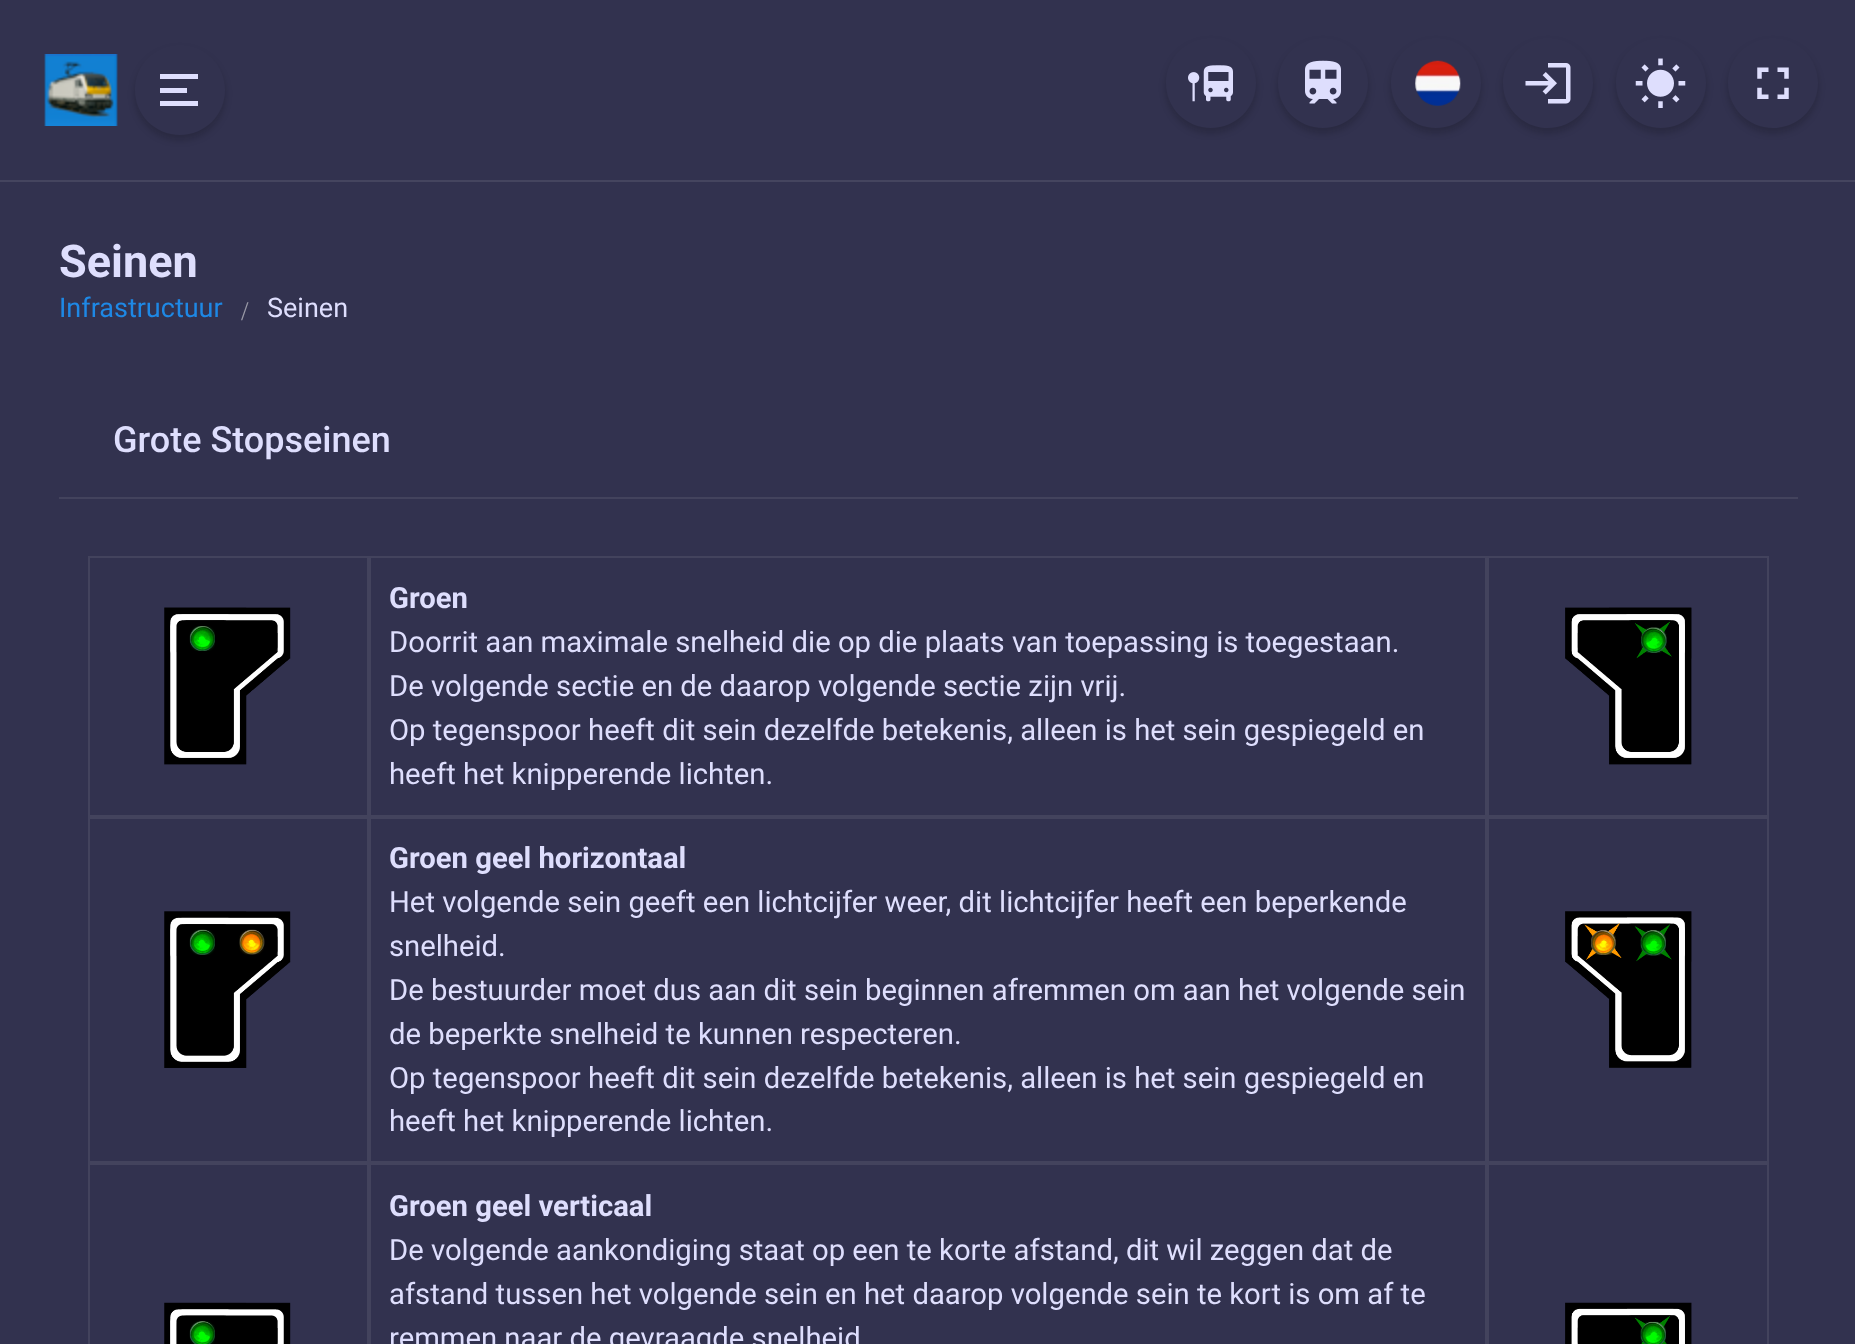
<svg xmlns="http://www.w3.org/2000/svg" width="1855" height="1344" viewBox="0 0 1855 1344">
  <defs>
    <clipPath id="clip1"><path d="M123 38H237V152H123ZM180 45C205 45 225 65 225 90C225 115 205 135 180 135C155 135 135 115 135 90C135 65 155 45 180 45Z" clip-rule="evenodd"/></clipPath>
    <clipPath id="clip2"><path d="M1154 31H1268V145H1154ZM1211 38C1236 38 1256 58 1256 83C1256 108 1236 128 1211 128C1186 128 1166 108 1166 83C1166 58 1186 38 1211 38Z" clip-rule="evenodd"/></clipPath>
    <clipPath id="clip3"><path d="M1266 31H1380V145H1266ZM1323 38C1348 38 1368 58 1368 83C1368 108 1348 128 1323 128C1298 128 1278 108 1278 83C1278 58 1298 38 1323 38Z" clip-rule="evenodd"/></clipPath>
    <clipPath id="clip4"><path d="M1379 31H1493V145H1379ZM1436 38C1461 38 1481 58 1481 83C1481 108 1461 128 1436 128C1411 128 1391 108 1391 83C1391 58 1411 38 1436 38Z" clip-rule="evenodd"/></clipPath>
    <clipPath id="clip5"><path d="M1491 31H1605V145H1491ZM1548 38C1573 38 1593 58 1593 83C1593 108 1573 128 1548 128C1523 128 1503 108 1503 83C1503 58 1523 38 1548 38Z" clip-rule="evenodd"/></clipPath>
    <clipPath id="clip6"><path d="M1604 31H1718V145H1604ZM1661 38C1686 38 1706 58 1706 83C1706 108 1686 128 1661 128C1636 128 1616 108 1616 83C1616 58 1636 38 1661 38Z" clip-rule="evenodd"/></clipPath>
    <clipPath id="clip7"><path d="M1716 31H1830V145H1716ZM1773 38C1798 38 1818 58 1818 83C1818 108 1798 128 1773 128C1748 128 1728 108 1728 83C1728 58 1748 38 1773 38Z" clip-rule="evenodd"/></clipPath>
  </defs>
  <rect width="100%" height="100%" fill="#32324f"/>
  <path d="M0 180h1855v2H0z" fill="#45455f"/>
  <image x="44" y="54" width="74" height="72" href="img/1.png"/>
  <g clip-path="url(#clip1)">
    <rect x="135" y="50" width="90" height="90" rx="45" fill="#04040733" filter="blur(3.5px)"/>
  </g>
  <path d="M160 88h27v5H160z" fill="#dedefd"/>
  <path d="M160 74h38v5H160z" fill="#dedefd"/>
  <path d="M160 101h38v5H160z" fill="#dedefd"/>
  <g clip-path="url(#clip2)">
    <rect x="1166" y="43" width="90" height="90" rx="45" fill="#04040733" filter="blur(3.5px)"/>
  </g>
  <image x="1188" y="65" width="45" height="37" href="img/2.png"/>
  <g clip-path="url(#clip3)">
    <rect x="1278" y="43" width="90" height="90" rx="45" fill="#04040733" filter="blur(3.5px)"/>
  </g>
  <image x="1305" y="60" width="36" height="44" href="img/3.png"/>
  <g clip-path="url(#clip4)">
    <rect x="1391" y="43" width="90" height="90" rx="45" fill="#04040733" filter="blur(3.5px)"/>
  </g>
  <image x="1415" y="60" width="46" height="46" href="img/4.png"/>
  <g clip-path="url(#clip5)">
    <rect x="1503" y="43" width="90" height="90" rx="45" fill="#04040733" filter="blur(3.5px)"/>
  </g>
  <image x="1525" y="63" width="46" height="41" href="img/5.png"/>
  <g clip-path="url(#clip6)">
    <rect x="1616" y="43" width="90" height="90" rx="45" fill="#04040733" filter="blur(3.5px)"/>
  </g>
  <image x="1635" y="58" width="51" height="50" href="img/6.png"/>
  <g clip-path="url(#clip7)">
    <rect x="1728" y="43" width="90" height="90" rx="45" fill="#04040733" filter="blur(3.5px)"/>
  </g>
  <image x="1757" y="67" width="32" height="32" href="img/7.png"/>
  <path d="M59 497h1739v2H59z" fill="#43435d"/>
  <path d="M89 557h279v259H89z" fill="none" stroke="#43435d" stroke-width="2"/>
  <image x="164" y="607" width="127" height="158" href="img/8.png"/>
  <path d="M370 557h1116v259H370z" fill="none" stroke="#43435d" stroke-width="2"/>
  <path d="M1488 557h280v259H1488z" fill="none" stroke="#43435d" stroke-width="2"/>
  <image x="1565" y="607" width="127" height="158" href="img/9.png"/>
  <path d="M89 818h279v344H89z" fill="none" stroke="#43435d" stroke-width="2"/>
  <image x="164" y="911" width="127" height="157" href="img/10.png"/>
  <path d="M370 818h1116v344H370z" fill="none" stroke="#43435d" stroke-width="2"/>
  <path d="M1488 818h280v344H1488z" fill="none" stroke="#43435d" stroke-width="2"/>
  <image x="1565" y="911" width="127" height="157" href="img/11.png"/>
  <path d="M89 1164h279v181H89z" fill="none" stroke="#43435d" stroke-width="2"/>
  <image x="164" y="1302" width="127" height="42" href="img/12.png"/>
  <path d="M370 1164h1116v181H370z" fill="none" stroke="#43435d" stroke-width="2"/>
  <path d="M1488 1164h280v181H1488z" fill="none" stroke="#43435d" stroke-width="2"/>
  <image x="1565" y="1302" width="127" height="42" href="img/13.png"/>
  <text x="59" y="277" font-family="Roboto" font-size="45" font-weight="bold" fill="#dedefd">Seinen</text>
  <text x="59" y="317" font-family="Roboto" font-size="27" fill="#1e88e5">Infrastructuur</text>
  <text x="241" y="320" font-family="Liberation Serif" font-size="27" fill="#9999a7">/</text>
  <text x="267" y="317" font-family="Roboto" font-size="27" fill="#dedefd">Seinen</text>
  <text x="113" y="452" font-family="Roboto" font-size="36" font-weight="500" fill="#dedefd">Grote Stopseinen</text>
  <text x="389" y="608" font-family="Roboto" font-size="29.25" font-weight="bold" fill="#dedefd">Groen</text>
  <g font-family="Roboto" font-size="29.25" fill="#dedefd">
    <text x="389" y="652">Doorrit aan maximale snelheid die op die plaats van toepassing is toegestaan.</text>
    <text x="389" y="696">De volgende sectie en de daarop volgende sectie zijn vrij.</text>
    <text x="389" y="740">Op tegenspoor heeft dit sein dezelfde betekenis, alleen is het sein gespiegeld en</text>
    <text x="389" y="784">heeft het knipperende lichten.</text>
  </g>
  <text x="389" y="868" font-family="Roboto" font-size="29.25" font-weight="bold" fill="#dedefd">Groen geel horizontaal</text>
  <g font-family="Roboto" font-size="29.25" fill="#dedefd">
    <text x="389" y="912">Het volgende sein geeft een lichtcijfer weer, dit lichtcijfer heeft een beperkende</text>
    <text x="389" y="956">snelheid.</text>
    <text x="389" y="1000">De bestuurder moet dus aan dit sein beginnen afremmen om aan het volgende sein</text>
    <text x="389" y="1044">de beperkte snelheid te kunnen respecteren.</text>
    <text x="389" y="1088">Op tegenspoor heeft dit sein dezelfde betekenis, alleen is het sein gespiegeld en</text>
    <text x="389" y="1131">heeft het knipperende lichten.</text>
  </g>
  <text x="389" y="1216" font-family="Roboto" font-size="29.25" font-weight="bold" fill="#dedefd">Groen geel verticaal</text>
  <g font-family="Roboto" font-size="29.25" fill="#dedefd">
    <text x="389" y="1260">De volgende aankondiging staat op een te korte afstand, dit wil zeggen dat de</text>
    <text x="389" y="1304">afstand tussen het volgende sein en het daarop volgende sein te kort is om af te</text>
    <text x="389" y="1348">remmen naar de gevraagde snelheid</text>
  </g>
</svg>
